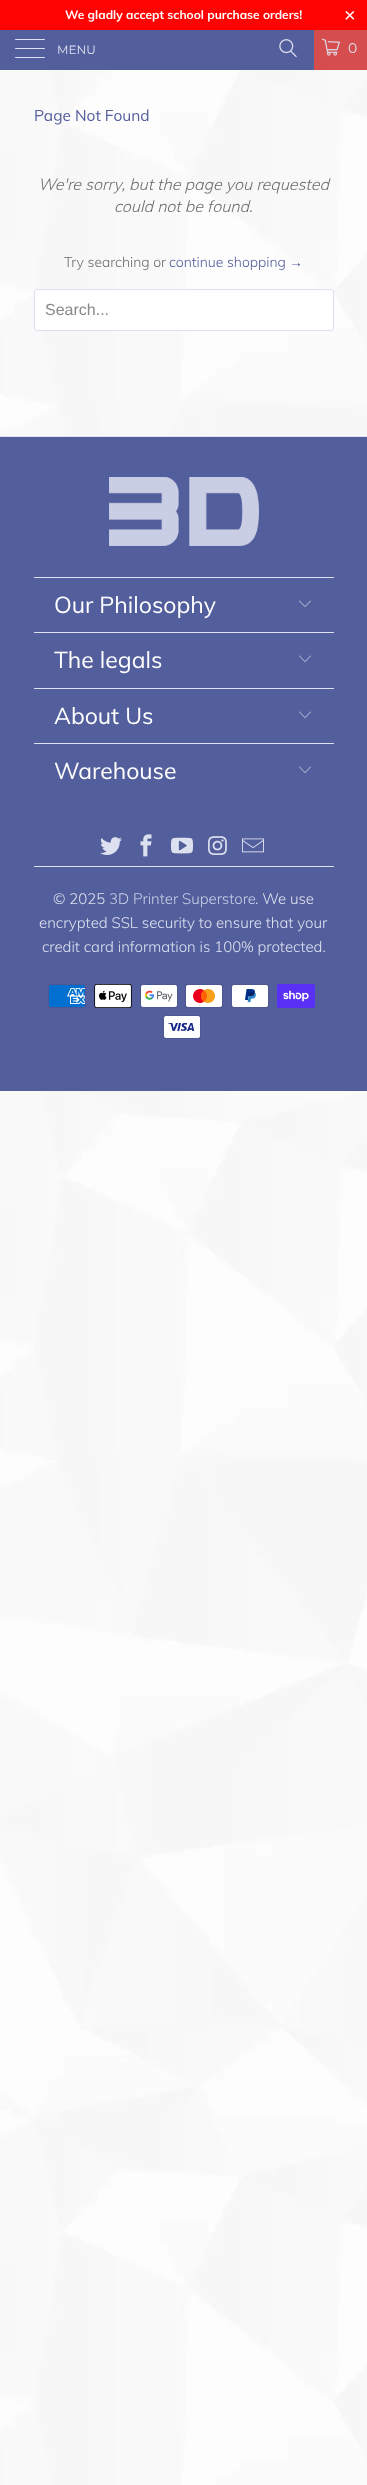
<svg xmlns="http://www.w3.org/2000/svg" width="367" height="2485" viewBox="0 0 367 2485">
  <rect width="100%" height="100%" fill="#fff"/>
  <image x="0" y="70" width="367" height="2415" href="img/1.png"/>
  <path d="M0 0h367v30H0z" fill="#ff0303"/>
  <path d="M0 30h314v40H0z" fill="#535e9c"/>
  <rect x="15" y="39" width="30" height="1" rx="0.5" fill="#dde1ef"/>
  <rect x="15" y="48" width="30" height="1" rx="0.5" fill="#dde1ef"/>
  <rect x="15" y="57" width="30" height="1" rx="0.5" fill="#dde1ef"/>
  <image x="279" y="39" width="18" height="19" href="img/2.png"/>
  <path d="M314 30h53v40H314z" fill="#d54d4d"/>
  <image x="322" y="38" width="18" height="18" href="img/3.png"/>
  <rect x="34.5" y="289.5" width="299" height="41" rx="2.5" fill="#fff" stroke="#dde1ef"/>
  <path d="M0 437h367v654H0z" fill="#535e9c"/>
  <path d="M0 436h367v1H0z" fill="#dde1ef"/>
  <image x="109" y="477" width="150" height="69" href="img/4.png"/>
  <path d="M34 577h300v1H34z" fill="#dde1ef"/>
  <image x="299" y="600" width="12" height="7" href="img/5.png"/>
  <path d="M34 632h300v1H34z" fill="#dde1ef"/>
  <image x="299" y="655" width="12" height="7" href="img/5.png"/>
  <path d="M34 688h300v1H34z" fill="#dde1ef"/>
  <image x="299" y="711" width="12" height="7" href="img/5.png"/>
  <path d="M34 743h300v1H34z" fill="#dde1ef"/>
  <image x="299" y="766" width="12" height="7" href="img/5.png"/>
  <image x="100" y="837" width="22" height="18" href="img/6.png"/>
  <image x="140" y="834" width="12" height="23" href="img/7.png"/>
  <image x="171" y="837" width="22" height="17" href="img/8.png"/>
  <image x="208" y="836" width="19" height="19" href="img/9.png"/>
  <image x="242" y="838" width="22" height="15" href="img/10.png"/>
  <path d="M34 866h300v1H34z" fill="#dde1ef"/>
  <image x="48" y="984" width="38" height="24" href="img/11.png"/>
  <image x="94" y="984" width="38" height="24" href="img/12.png"/>
  <image x="140" y="984" width="38" height="24" href="img/13.png"/>
  <image x="185" y="984" width="38" height="24" href="img/14.png"/>
  <image x="231" y="984" width="38" height="24" href="img/15.png"/>
  <image x="277" y="984" width="38" height="24" href="img/16.png"/>
  <image x="163" y="1015" width="38" height="24" href="img/17.png"/>
  <text x="65" y="19" font-family="Muli" font-size="12" font-weight="bold" fill="#fff">We gladly accept school purchase orders!</text>
  <text x="344" y="22" font-family="Liberation Sans" font-size="20" fill="#fff">×</text>
  <text x="57" y="54" font-family="Montserrat" font-size="12" fill="#dde1ef">MENU</text>
  <text x="348" y="53" font-family="Montserrat" font-size="14" fill="#dde1ef">0</text>
  <text x="34" y="121" font-family="Muli" font-size="15.5" fill="#535e9c">Page Not Found</text>
  <g font-family="Muli" font-size="16" font-weight="300" font-style="italic" fill="#6d6d6d">
    <text x="38" y="190">We're sorry, but the page you requested</text>
    <text x="114" y="212">could not be found.</text>
  </g>
  <text x="64" y="267" font-family="Muli" font-size="14" font-weight="300" fill="#6d6d6d">Try searching or</text>
  <text x="169" y="267" font-family="Muli" font-size="14" font-weight="300" fill="#535e9c">continue shopping</text>
  <text x="289" y="267" font-family="Liberation Serif" font-size="14" fill="#535e9c">→</text>
  <text x="45" y="315" font-family="Liberation Sans" font-size="16" fill="#888">Search...</text>
  <g font-family="Muli" font-size="23" fill="#fff">
    <text x="54" y="613">Our Philosophy</text>
    <text x="54" y="668">The legals</text>
    <text x="54" y="724">About Us</text>
    <text x="54" y="779">Warehouse</text>
  </g>
  <text x="53" y="904" font-family="Muli" font-size="15" font-weight="300" fill="#dde1ef">© 2025</text>
  <text x="109" y="904" font-family="Muli" font-size="15" font-weight="300" fill="#c8cee5">3D Printer Superstore</text>
  <g font-family="Muli" font-size="15" font-weight="300" fill="#dde1ef">
    <text x="255" y="904">. We use</text>
    <text x="39" y="928">encrypted SSL security to ensure that your</text>
    <text x="42" y="952">credit card information is 100% protected.</text>
  </g>
</svg>
